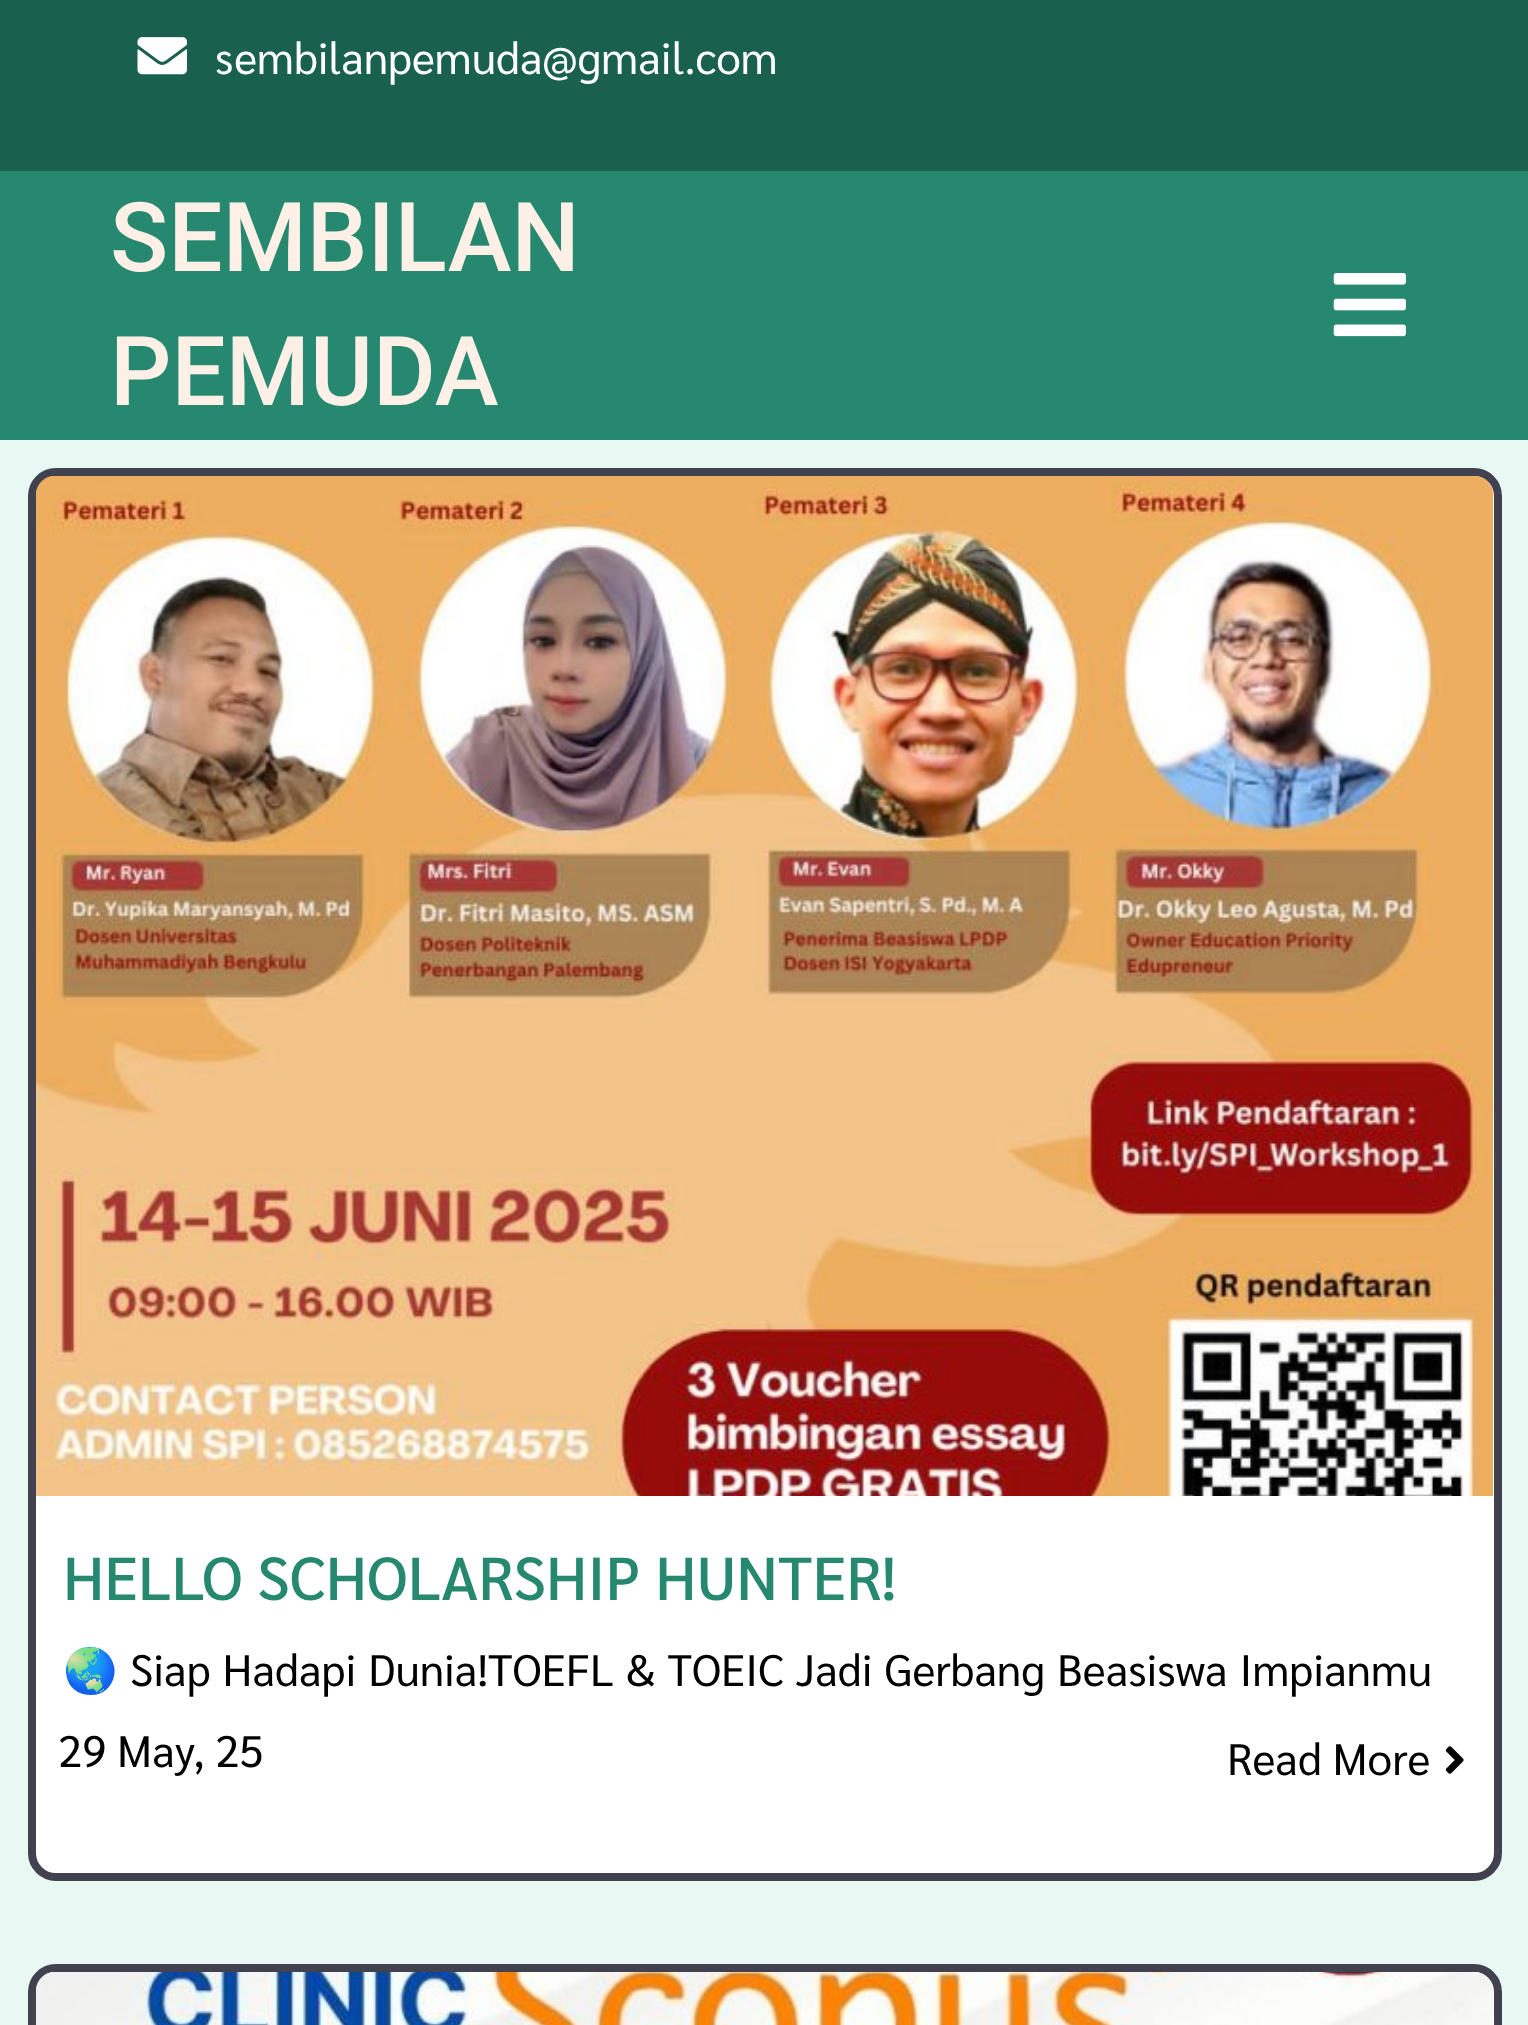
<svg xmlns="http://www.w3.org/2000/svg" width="1528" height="2025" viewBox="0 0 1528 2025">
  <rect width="100%" height="100%" fill="#1a604e"/>
  <image x="137" y="37" width="50" height="38" href="img/1.png"/>
  <path d="M0 171h1528v269H0z" fill="#26896f"/>
  <image x="1333" y="273" width="73" height="64" href="img/2.png"/>
  <path d="M0 440h1528v1585H0z" fill="#e7f9f2"/>
  <rect x="32" y="472" width="1466" height="1405" rx="24" fill="#fff" stroke="#42414f" stroke-width="8"/>
  <image x="36" y="476" width="1457" height="1020" href="img/3.png"/>
  <image x="1445" y="1746" width="19" height="28" href="img/4.png"/>
  <rect x="32" y="1968" width="1466" height="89" rx="24" fill="#fff" stroke="#42414f" stroke-width="8"/>
  <image x="36" y="1972" width="1457" height="53" href="img/5.png"/>
  <text x="215" y="74" font-family="Sarabun" font-size="44" fill="#fff">sembilanpemuda@gmail.com</text>
  <g font-family="Roboto" font-size="96.25" font-weight="500" fill="#feefe7">
    <text x="110" y="271">SEMBILAN</text>
    <text x="110" y="405">PEMUDA</text>
  </g>
  <text x="63" y="1600" font-family="Sarabun" font-size="60.5" font-weight="500" fill="#26896f">HELLO SCHOLARSHIP HUNTER!</text>
  <text x="63" y="1686" font-family="Noto Color Emoji" font-size="44" fill="#000">🌏</text>
  <g font-family="Sarabun" font-size="44" fill="#000">
    <text x="130" y="1686" word-spacing="1.25">Siap Hadapi Dunia!TOEFL &amp; TOEIC Jadi Gerbang Beasiswa Impianmu</text>
    <text x="58" y="1767">29 May, 25</text>
    <text x="1227" y="1775">Read More</text>
  </g>
</svg>
